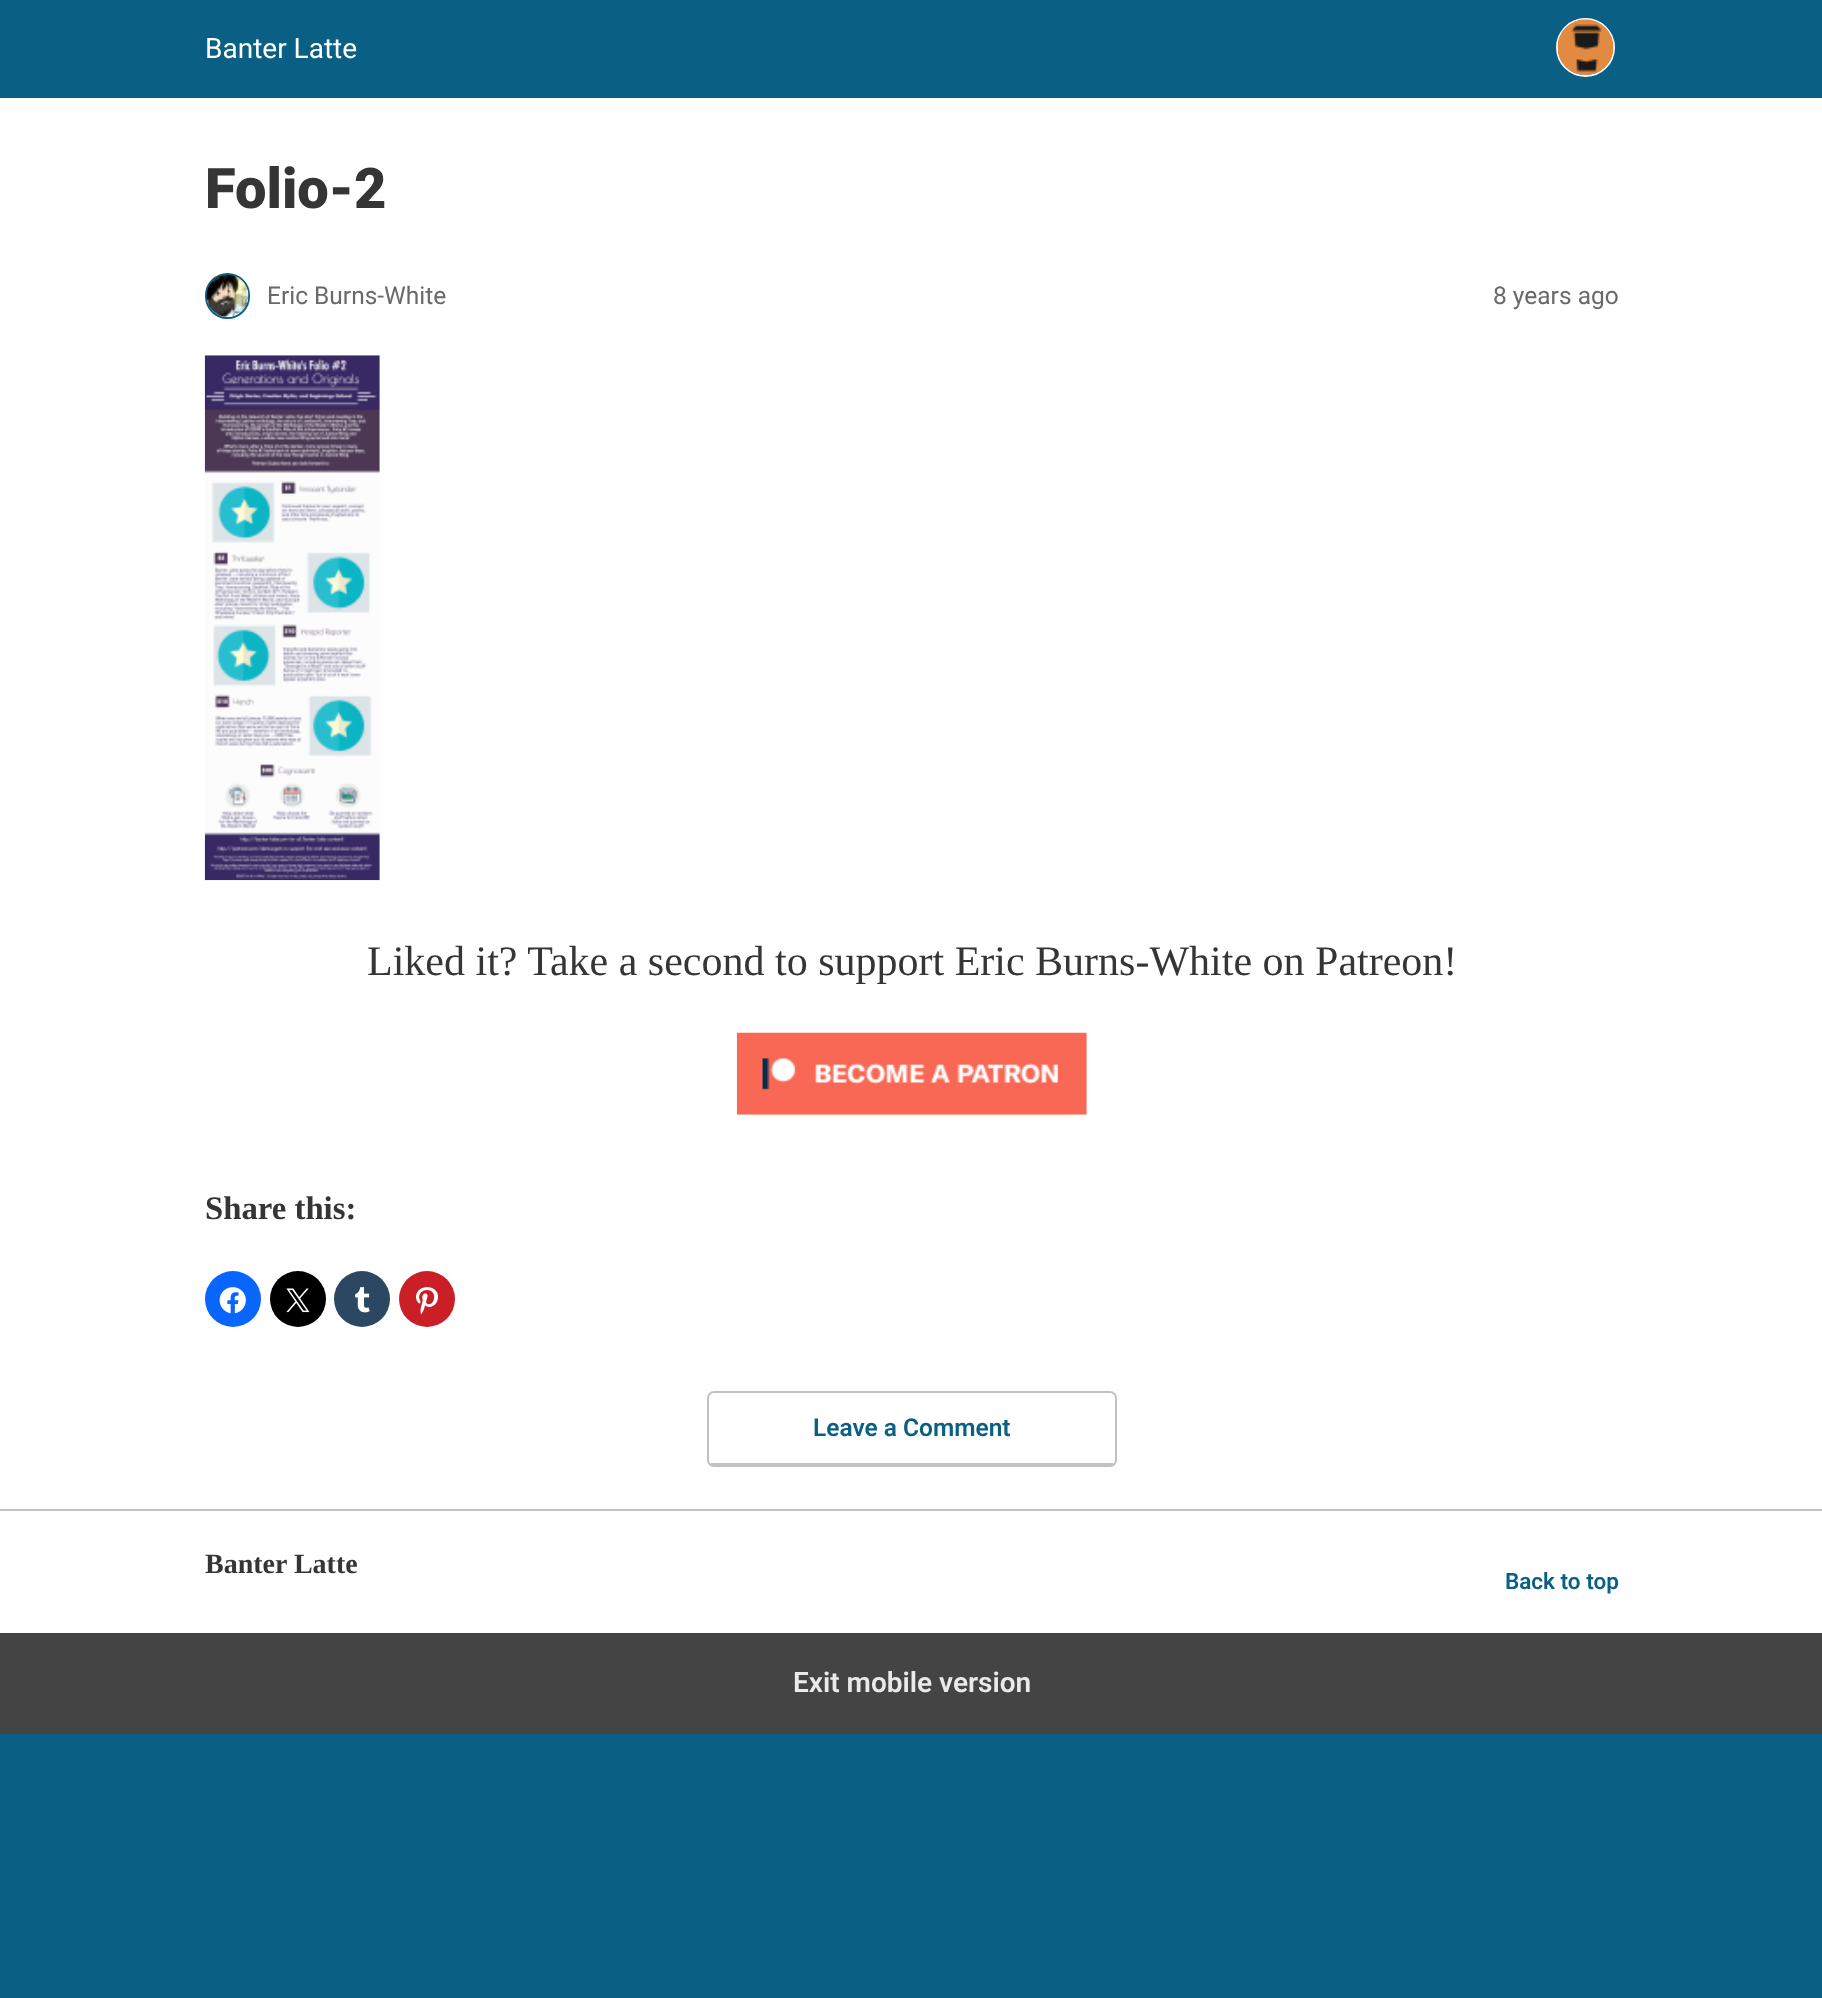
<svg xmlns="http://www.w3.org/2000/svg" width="1822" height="1998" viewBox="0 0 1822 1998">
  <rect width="100%" height="100%" fill="#0a5f85"/>
  <path d="M0 98h1822v1535H0z" fill="#fff"/>
  <circle cx="1585.5" cy="47.5" r="28.5" fill="none" stroke="#fff" stroke-width="2"/>
  <image x="1557" y="19" width="57" height="57" href="img/1.png"/>
  <rect x="206" y="274" width="43" height="44" rx="21.5" fill="none" stroke="#0a5f85" stroke-width="2"/>
  <image x="206" y="274" width="43" height="43" href="img/2.png"/>
  <image x="204" y="355" width="176" height="526" href="img/3.png"/>
  <image x="736" y="1032" width="351" height="83" href="img/4.png"/>
  <circle cx="233" cy="1299" r="28" fill="#0866ff"/>
  <image x="219" y="1287" width="27" height="27" href="img/5.png"/>
  <circle cx="298" cy="1299" r="28" fill="#000"/>
  <image x="286" y="1288" width="24" height="25" href="img/6.png"/>
  <circle cx="362" cy="1299" r="28" fill="#2c4762"/>
  <image x="355" y="1287" width="15" height="26" href="img/7.png"/>
  <circle cx="427" cy="1299" r="28" fill="#ca1f27"/>
  <image x="416" y="1287" width="22" height="28" href="img/8.png"/>
  <rect x="708" y="1392" width="408" height="74" rx="6" fill="none" stroke="#c2c2c2" stroke-width="2"/>
  <path d="M711 1463h402v2H711z" fill="#c2c2c2"/>
  <path d="M0 1509h1822v2H0z" fill="#c2c2c2"/>
  <path d="M0 1633h1822v101H0z" fill="#444"/>
  <text x="205" y="58" font-family="Roboto" font-size="28" fill="#fff">Banter Latte</text>
  <text x="205" y="208" font-family="Roboto" font-size="56" font-weight="900" fill="#353535">Folio-2</text>
  <g font-family="Roboto" font-size="24.5" fill="#696969">
    <text x="267" y="304">Eric Burns-White</text>
    <text x="1493" y="304">8 years ago</text>
  </g>
  <text x="367" y="975" font-family="Liberation Serif" font-size="42" fill="#353535">Liked it? Take a second to support Eric Burns-White on Patreon!</text>
  <text x="205" y="1219" font-family="Liberation Serif" font-size="32.75" font-weight="bold" fill="#353535">Share this:</text>
  <text x="813" y="1436" font-family="Roboto" font-size="24.5" font-weight="600" fill="#0a5f85">Leave a Comment</text>
  <text x="205" y="1573" font-family="Liberation Serif" font-size="28" font-weight="bold" fill="#353535">Banter Latte</text>
  <text x="1505" y="1589" font-family="Roboto" font-size="22.5" font-weight="600" fill="#0a5f85">Back to top</text>
  <text x="793" y="1692" font-family="Roboto" font-size="28" font-weight="600" fill="#eaeaea">Exit mobile version</text>
</svg>
